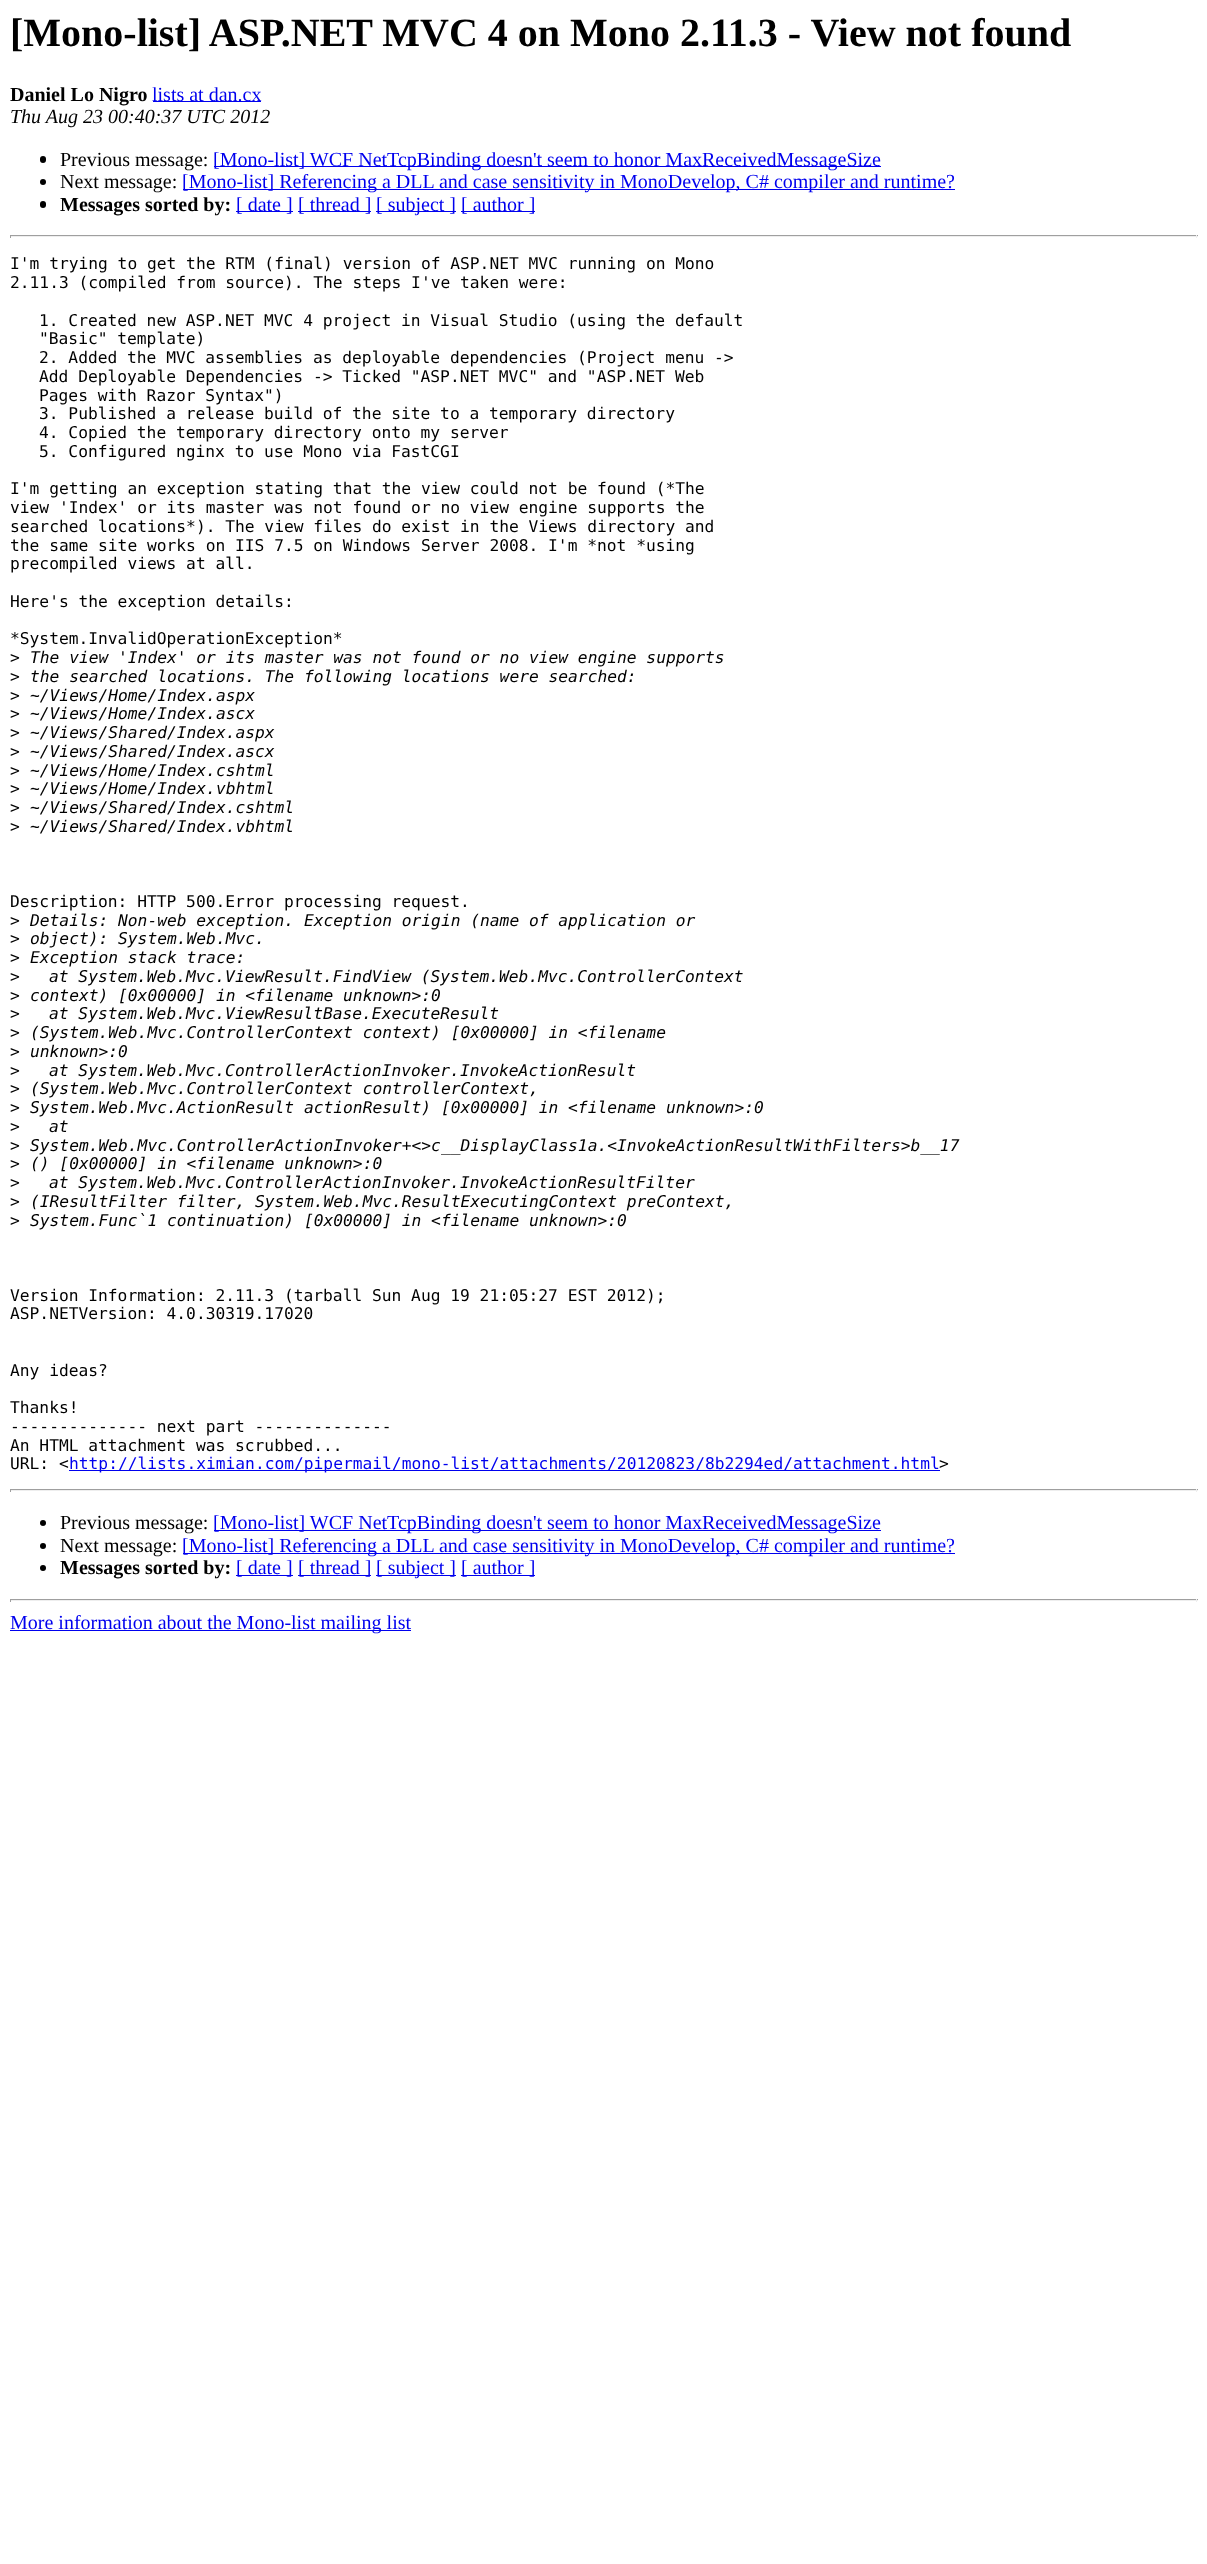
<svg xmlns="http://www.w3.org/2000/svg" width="1207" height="2564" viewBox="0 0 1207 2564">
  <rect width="100%" height="100%" fill="#fff"/>
  <path d="M153 101h108v1H153z" fill="#00e"/>
  <rect x="40" y="156" width="6" height="7" rx="3" fill="#000"/>
  <path d="M214 166h667v1H214z" fill="#00e"/>
  <circle cx="43" cy="182" r="3" fill="#000"/>
  <path d="M183 189h772v1H183z" fill="#00e"/>
  <rect x="40" y="201" width="6" height="7" rx="3" fill="#000"/>
  <path d="M236 211h57v1H236z" fill="#00e"/>
  <path d="M298 211h73v1H298z" fill="#00e"/>
  <path d="M376 211h80v1H376z" fill="#00e"/>
  <path d="M461 211h74v1H461z" fill="#00e"/>
  <path d="M10 235h1188v1H10z" fill="#9f9f9f"/>
  <path d="M1196 235h1v3H1196z" fill="#eee"/>
  <path d="M10 236h1188v1H10z" fill="#eee"/>
  <path d="M10 235h1v3H10z" fill="#9f9f9f"/>
  <path d="M69 1470h871v1H69z" fill="#00e"/>
  <path d="M10 1489h1188v1H10z" fill="#9f9f9f"/>
  <path d="M1196 1489h1v3H1196z" fill="#eee"/>
  <path d="M10 1490h1188v1H10z" fill="#eee"/>
  <path d="M10 1489h1v3H10z" fill="#9f9f9f"/>
  <circle cx="43" cy="1523" r="3" fill="#000"/>
  <path d="M214 1530h667v1H214z" fill="#00e"/>
  <circle cx="43" cy="1546" r="3" fill="#000"/>
  <path d="M183 1553h772v1H183z" fill="#00e"/>
  <circle cx="43" cy="1568" r="3" fill="#000"/>
  <path d="M236 1575h57v1H236z" fill="#00e"/>
  <path d="M298 1575h73v1H298z" fill="#00e"/>
  <path d="M376 1575h80v1H376z" fill="#00e"/>
  <path d="M461 1575h74v1H461z" fill="#00e"/>
  <path d="M10 1599h1188v1H10z" fill="#9f9f9f"/>
  <path d="M1196 1599h1v3H1196z" fill="#eee"/>
  <path d="M10 1600h1188v1H10z" fill="#eee"/>
  <path d="M10 1599h1v3H10z" fill="#9f9f9f"/>
  <path d="M10 1630h401v1H10z" fill="#00e"/>
  <text x="10" y="46" font-family="Liberation Serif" font-size="40" font-weight="bold" fill="#000">[Mono-list] ASP.NET MVC 4 on Mono 2.11.3 - View not found</text>
  <text x="10" y="101" font-family="Liberation Serif" font-size="20" font-weight="bold" fill="#000">Daniel Lo Nigro</text>
  <text x="152" y="101" font-family="Liberation Serif" font-size="20" fill="#00e">lists at dan.cx</text>
  <text x="10" y="123" font-family="Liberation Serif" font-size="20" font-style="italic" fill="#000">Thu Aug 23 00:40:37 UTC 2012</text>
  <text x="60" y="166" font-family="Liberation Serif" font-size="20" fill="#000">Previous message:</text>
  <text x="213" y="166" font-family="Liberation Serif" font-size="20" fill="#00e">[Mono-list] WCF NetTcpBinding doesn't seem to honor MaxReceivedMessageSize</text>
  <text x="60" y="188" font-family="Liberation Serif" font-size="20" fill="#000">Next message:</text>
  <text x="182" y="188" font-family="Liberation Serif" font-size="20" fill="#00e">[Mono-list] Referencing a DLL and case sensitivity in MonoDevelop, C# compiler and runtime?</text>
  <text x="60" y="211" font-family="Liberation Serif" font-size="20" font-weight="bold" fill="#000">Messages sorted by:</text>
  <g font-family="Liberation Serif" font-size="20" fill="#00e">
    <text x="236" y="211">[ date ]</text>
    <text x="298" y="211">[ thread ]</text>
    <text x="376" y="211">[ subject ]</text>
    <text x="461" y="211">[ author ]</text>
  </g>
  <g font-family="DejaVu Sans Mono" font-size="16.25" fill="#000">
    <text x="10" y="269">I'm trying to get the RTM (final) version of ASP.NET MVC running on Mono</text>
    <text x="10" y="288">2.11.3 (compiled from source). The steps I've taken were:</text>
    <text x="39" y="326">1. Created new ASP.NET MVC 4 project in Visual Studio (using the default</text>
    <text x="39" y="344">"Basic" template)</text>
    <text x="39" y="363">2. Added the MVC assemblies as deployable dependencies (Project menu -&gt;</text>
    <text x="39" y="382">Add Deployable Dependencies -&gt; Ticked "ASP.NET MVC" and "ASP.NET Web</text>
    <text x="39" y="401">Pages with Razor Syntax")</text>
    <text x="39" y="419">3. Published a release build of the site to a temporary directory</text>
    <text x="39" y="438">4. Copied the temporary directory onto my server</text>
    <text x="39" y="457">5. Configured nginx to use Mono via FastCGI</text>
    <text x="10" y="494">I'm getting an exception stating that the view could not be found (*The</text>
    <text x="10" y="513">view 'Index' or its master was not found or no view engine supports the</text>
    <text x="10" y="532">searched locations*). The view files do exist in the Views directory and</text>
    <text x="10" y="551">the same site works on IIS 7.5 on Windows Server 2008. I'm *not *using</text>
    <text x="10" y="569">precompiled views at all.</text>
    <text x="10" y="607">Here's the exception details:</text>
    <text x="10" y="644">*System.InvalidOperationException*</text>
    <text x="10" y="663">&gt;</text>
  </g>
  <text x="30" y="663" font-family="DejaVu Sans Mono" font-size="16.25" font-style="italic" fill="#000">The view 'Index' or its master was not found or no view engine supports</text>
  <text x="10" y="682" font-family="DejaVu Sans Mono" font-size="16.25" fill="#000">&gt;</text>
  <text x="30" y="682" font-family="DejaVu Sans Mono" font-size="16.25" font-style="italic" fill="#000">the searched locations. The following locations were searched:</text>
  <text x="10" y="701" font-family="DejaVu Sans Mono" font-size="16.25" fill="#000">&gt;</text>
  <text x="30" y="701" font-family="DejaVu Sans Mono" font-size="16.25" font-style="italic" fill="#000">~/Views/Home/Index.aspx</text>
  <text x="10" y="719" font-family="DejaVu Sans Mono" font-size="16.25" fill="#000">&gt;</text>
  <text x="30" y="719" font-family="DejaVu Sans Mono" font-size="16.25" font-style="italic" fill="#000">~/Views/Home/Index.ascx</text>
  <text x="10" y="738" font-family="DejaVu Sans Mono" font-size="16.25" fill="#000">&gt;</text>
  <text x="30" y="738" font-family="DejaVu Sans Mono" font-size="16.25" font-style="italic" fill="#000">~/Views/Shared/Index.aspx</text>
  <text x="10" y="757" font-family="DejaVu Sans Mono" font-size="16.25" fill="#000">&gt;</text>
  <text x="30" y="757" font-family="DejaVu Sans Mono" font-size="16.25" font-style="italic" fill="#000">~/Views/Shared/Index.ascx</text>
  <text x="10" y="776" font-family="DejaVu Sans Mono" font-size="16.25" fill="#000">&gt;</text>
  <text x="30" y="776" font-family="DejaVu Sans Mono" font-size="16.25" font-style="italic" fill="#000">~/Views/Home/Index.cshtml</text>
  <text x="10" y="794" font-family="DejaVu Sans Mono" font-size="16.25" fill="#000">&gt;</text>
  <text x="30" y="794" font-family="DejaVu Sans Mono" font-size="16.25" font-style="italic" fill="#000">~/Views/Home/Index.vbhtml</text>
  <text x="10" y="813" font-family="DejaVu Sans Mono" font-size="16.25" fill="#000">&gt;</text>
  <text x="30" y="813" font-family="DejaVu Sans Mono" font-size="16.25" font-style="italic" fill="#000">~/Views/Shared/Index.cshtml</text>
  <text x="10" y="832" font-family="DejaVu Sans Mono" font-size="16.25" fill="#000">&gt;</text>
  <text x="30" y="832" font-family="DejaVu Sans Mono" font-size="16.25" font-style="italic" fill="#000">~/Views/Shared/Index.vbhtml</text>
  <g font-family="DejaVu Sans Mono" font-size="16.25" fill="#000">
    <text x="10" y="907">Description: HTTP 500.Error processing request.</text>
    <text x="10" y="926">&gt;</text>
  </g>
  <text x="30" y="926" font-family="DejaVu Sans Mono" font-size="16.25" font-style="italic" fill="#000">Details: Non-web exception. Exception origin (name of application or</text>
  <text x="10" y="944" font-family="DejaVu Sans Mono" font-size="16.25" fill="#000">&gt;</text>
  <text x="30" y="944" font-family="DejaVu Sans Mono" font-size="16.25" font-style="italic" fill="#000">object): System.Web.Mvc.</text>
  <text x="10" y="963" font-family="DejaVu Sans Mono" font-size="16.25" fill="#000">&gt;</text>
  <text x="30" y="963" font-family="DejaVu Sans Mono" font-size="16.25" font-style="italic" fill="#000">Exception stack trace:</text>
  <text x="10" y="982" font-family="DejaVu Sans Mono" font-size="16.25" fill="#000">&gt;</text>
  <text x="49" y="982" font-family="DejaVu Sans Mono" font-size="16.25" font-style="italic" fill="#000">at System.Web.Mvc.ViewResult.FindView (System.Web.Mvc.ControllerContext</text>
  <text x="10" y="1001" font-family="DejaVu Sans Mono" font-size="16.25" fill="#000">&gt;</text>
  <text x="30" y="1001" font-family="DejaVu Sans Mono" font-size="16.25" font-style="italic" fill="#000">context) [0x00000] in &lt;filename unknown&gt;:0</text>
  <text x="10" y="1019" font-family="DejaVu Sans Mono" font-size="16.25" fill="#000">&gt;</text>
  <text x="49" y="1019" font-family="DejaVu Sans Mono" font-size="16.25" font-style="italic" fill="#000">at System.Web.Mvc.ViewResultBase.ExecuteResult</text>
  <text x="10" y="1038" font-family="DejaVu Sans Mono" font-size="16.25" fill="#000">&gt;</text>
  <text x="30" y="1038" font-family="DejaVu Sans Mono" font-size="16.25" font-style="italic" fill="#000">(System.Web.Mvc.ControllerContext context) [0x00000] in &lt;filename</text>
  <text x="10" y="1057" font-family="DejaVu Sans Mono" font-size="16.25" fill="#000">&gt;</text>
  <text x="30" y="1057" font-family="DejaVu Sans Mono" font-size="16.25" font-style="italic" fill="#000">unknown&gt;:0</text>
  <text x="10" y="1076" font-family="DejaVu Sans Mono" font-size="16.25" fill="#000">&gt;</text>
  <text x="49" y="1076" font-family="DejaVu Sans Mono" font-size="16.25" font-style="italic" fill="#000">at System.Web.Mvc.ControllerActionInvoker.InvokeActionResult</text>
  <text x="10" y="1094" font-family="DejaVu Sans Mono" font-size="16.25" fill="#000">&gt;</text>
  <text x="30" y="1094" font-family="DejaVu Sans Mono" font-size="16.25" font-style="italic" fill="#000">(System.Web.Mvc.ControllerContext controllerContext,</text>
  <text x="10" y="1113" font-family="DejaVu Sans Mono" font-size="16.25" fill="#000">&gt;</text>
  <text x="30" y="1113" font-family="DejaVu Sans Mono" font-size="16.25" font-style="italic" fill="#000">System.Web.Mvc.ActionResult actionResult) [0x00000] in &lt;filename unknown&gt;:0</text>
  <text x="10" y="1132" font-family="DejaVu Sans Mono" font-size="16.25" fill="#000">&gt;</text>
  <text x="49" y="1132" font-family="DejaVu Sans Mono" font-size="16.25" font-style="italic" fill="#000">at</text>
  <text x="10" y="1151" font-family="DejaVu Sans Mono" font-size="16.25" fill="#000">&gt;</text>
  <text x="30" y="1151" font-family="DejaVu Sans Mono" font-size="16.25" font-style="italic" fill="#000">System.Web.Mvc.ControllerActionInvoker+&lt;&gt;c__DisplayClass1a.&lt;InvokeActionResultWithFilters&gt;b__17</text>
  <text x="10" y="1169" font-family="DejaVu Sans Mono" font-size="16.25" fill="#000">&gt;</text>
  <text x="30" y="1169" font-family="DejaVu Sans Mono" font-size="16.25" font-style="italic" fill="#000">() [0x00000] in &lt;filename unknown&gt;:0</text>
  <text x="10" y="1188" font-family="DejaVu Sans Mono" font-size="16.25" fill="#000">&gt;</text>
  <text x="49" y="1188" font-family="DejaVu Sans Mono" font-size="16.25" font-style="italic" fill="#000">at System.Web.Mvc.ControllerActionInvoker.InvokeActionResultFilter</text>
  <text x="10" y="1207" font-family="DejaVu Sans Mono" font-size="16.25" fill="#000">&gt;</text>
  <text x="30" y="1207" font-family="DejaVu Sans Mono" font-size="16.25" font-style="italic" fill="#000">(IResultFilter filter, System.Web.Mvc.ResultExecutingContext preContext,</text>
  <text x="10" y="1226" font-family="DejaVu Sans Mono" font-size="16.25" fill="#000">&gt;</text>
  <text x="30" y="1226" font-family="DejaVu Sans Mono" font-size="16.25" font-style="italic" fill="#000">System.Func`1 continuation) [0x00000] in &lt;filename unknown&gt;:0</text>
  <g font-family="DejaVu Sans Mono" font-size="16.25" fill="#000">
    <text x="10" y="1301">Version Information: 2.11.3 (tarball Sun Aug 19 21:05:27 EST 2012);</text>
    <text x="10" y="1319">ASP.NETVersion: 4.0.30319.17020</text>
    <text x="10" y="1376">Any ideas?</text>
    <text x="10" y="1413">Thanks!</text>
    <text x="10" y="1432">-------------- next part --------------</text>
    <text x="10" y="1451">An HTML attachment was scrubbed...</text>
    <text x="10" y="1469">URL: &lt;</text>
  </g>
  <text x="69" y="1469" font-family="DejaVu Sans Mono" font-size="16.25" fill="#00e">http://lists.ximian.com/pipermail/mono-list/attachments/20120823/8b2294ed/attachment.html</text>
  <text x="939" y="1469" font-family="DejaVu Sans Mono" font-size="16.25" fill="#000">&gt;</text>
  <text x="60" y="1529" font-family="Liberation Serif" font-size="20" fill="#000">Previous message:</text>
  <text x="213" y="1529" font-family="Liberation Serif" font-size="20" fill="#00e">[Mono-list] WCF NetTcpBinding doesn't seem to honor MaxReceivedMessageSize</text>
  <text x="60" y="1552" font-family="Liberation Serif" font-size="20" fill="#000">Next message:</text>
  <text x="182" y="1552" font-family="Liberation Serif" font-size="20" fill="#00e">[Mono-list] Referencing a DLL and case sensitivity in MonoDevelop, C# compiler and runtime?</text>
  <text x="60" y="1574" font-family="Liberation Serif" font-size="20" font-weight="bold" fill="#000">Messages sorted by:</text>
  <g font-family="Liberation Serif" font-size="20" fill="#00e">
    <text x="236" y="1574">[ date ]</text>
    <text x="298" y="1574">[ thread ]</text>
    <text x="376" y="1574">[ subject ]</text>
    <text x="461" y="1574">[ author ]</text>
    <text x="10" y="1629">More information about the Mono-list mailing list</text>
  </g>
</svg>
